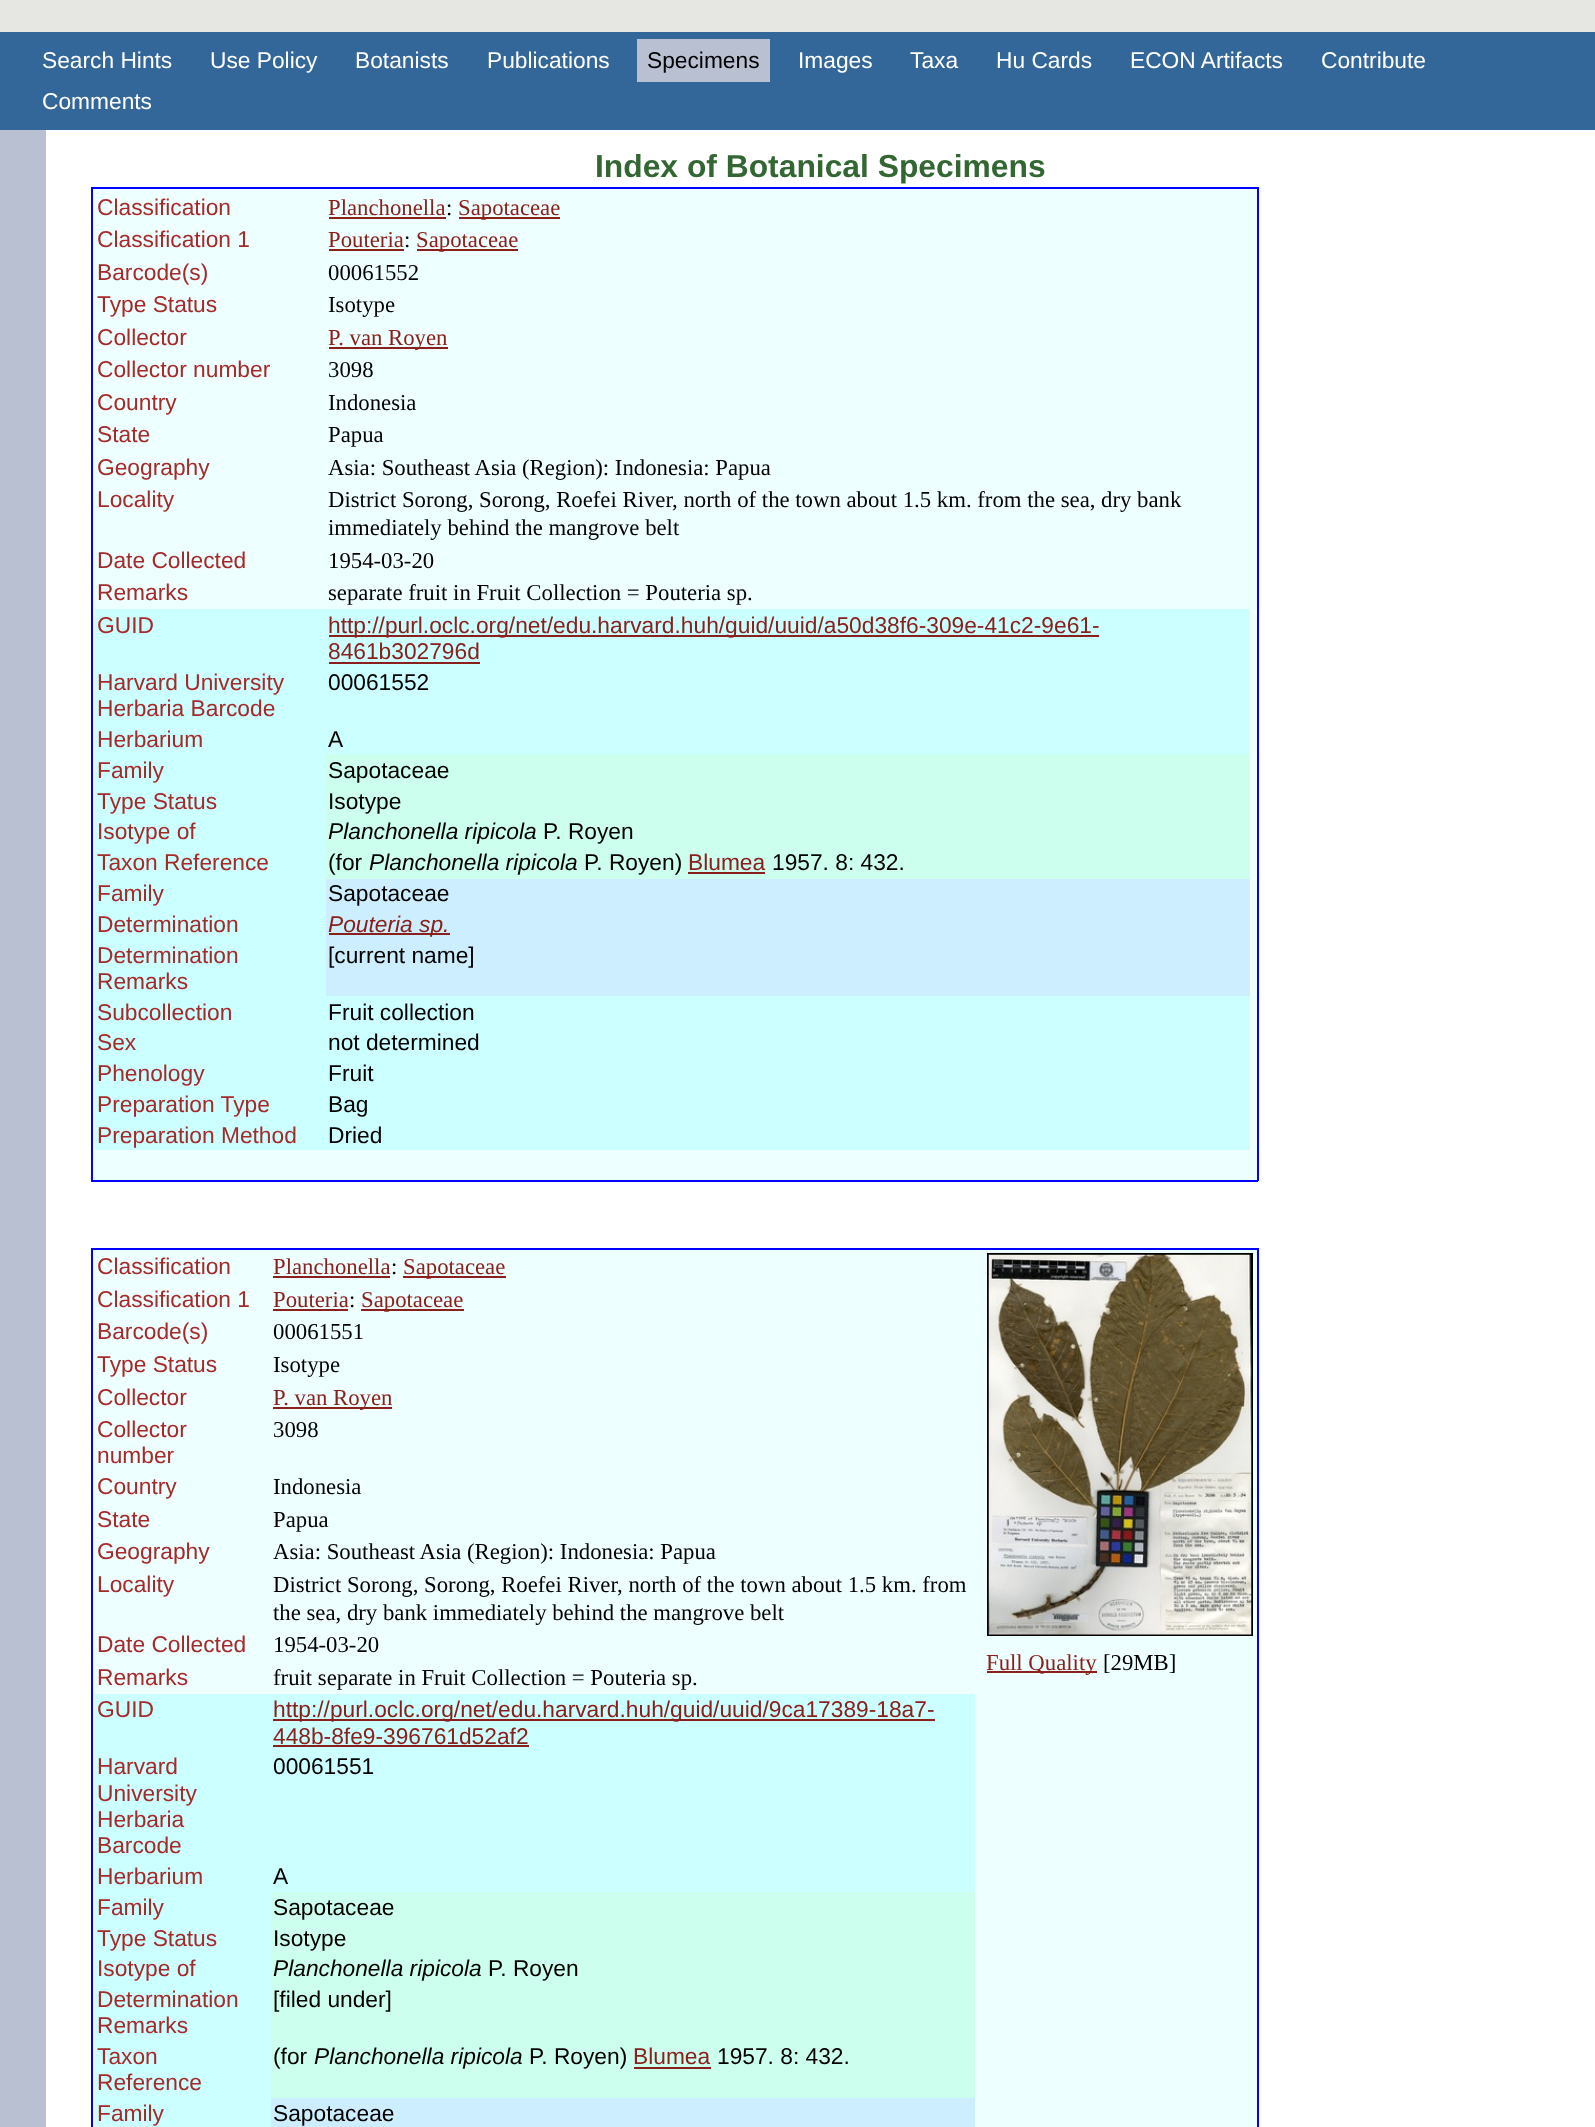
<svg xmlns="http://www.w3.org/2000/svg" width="1595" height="2127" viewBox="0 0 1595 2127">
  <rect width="100%" height="100%" fill="#e6e6e3"/>
  <path d="M0 32h1595v98H0z" fill="#369"/>
  <path d="M637 39h133v43H637z" fill="#b8c0d2"/>
  <path d="M0 130h46v1997H0z" fill="#b8c0d2"/>
  <path d="M46 130h1549v1997H46z" fill="#fff"/>
  <path d="M93 189h1164v991H93z" fill="#eff"/>
  <path d="M91 187h1167v2H91z" fill="#00f"/>
  <path d="M1257 187h2v994H1257z" fill="#00f"/>
  <path d="M91 1180h1167v2H91z" fill="#00f"/>
  <path d="M91 187h2v994H91z" fill="#00f"/>
  <path d="M329 217h117v2H329z" fill="#89201b"/>
  <path d="M459 217h101v2H459z" fill="#89201b"/>
  <path d="M329 249h75v2H329z" fill="#89201b"/>
  <path d="M417 249h101v2H417z" fill="#89201b"/>
  <path d="M329 347h119v2H329z" fill="#89201b"/>
  <path d="M95 609h1155v145H95z" fill="#cff"/>
  <path d="M329 635h770v2H329z" fill="#89201b"/>
  <path d="M329 662h151v2H329z" fill="#89201b"/>
  <path d="M95 754h231v242H95z" fill="#cff"/>
  <path d="M326 754h924v125H326z" fill="#cfe"/>
  <path d="M688 872h77v2H688z" fill="#89201b"/>
  <path d="M326 879h924v117H326z" fill="#cef"/>
  <path d="M329 933h121v2H329z" fill="#89201b"/>
  <path d="M95 996h1155v154H95z" fill="#cff"/>
  <path d="M93 1250h1164v877H93z" fill="#eff"/>
  <path d="M91 1248h1167v2H91z" fill="#00f"/>
  <path d="M1257 1248h2v879H1257z" fill="#00f"/>
  <path d="M91 1248h2v879H91z" fill="#00f"/>
  <path d="M273 1276h117v2H273z" fill="#89201b"/>
  <path d="M403 1276h103v2H403z" fill="#89201b"/>
  <path d="M273 1309h75v2H273z" fill="#89201b"/>
  <path d="M361 1309h103v2H361z" fill="#89201b"/>
  <path d="M273 1407h119v2H273z" fill="#89201b"/>
  <path d="M95 1694h880v198H95z" fill="#cff"/>
  <path d="M273 1719h662v2H273z" fill="#89201b"/>
  <path d="M273 1745h256v2H273z" fill="#89201b"/>
  <path d="M95 1892h176v235H95z" fill="#cff"/>
  <path d="M271 1892h704v206H271z" fill="#cfe"/>
  <path d="M634 2067h77v2H634z" fill="#89201b"/>
  <path d="M271 2098h704v29H271z" fill="#cef"/>
  <path d="M988 1254h264v381H988z" fill="none" stroke="#000" stroke-width="2"/>
  <image x="988" y="1254" width="264" height="381" href="img/1.png"/>
  <path d="M987 1671h110v2H987z" fill="#89201b"/>
  <g font-family="Liberation Sans" font-size="22.75" fill="#fff">
    <text x="42" y="68">Search Hints</text>
    <text x="210" y="68">Use Policy</text>
    <text x="355" y="68">Botanists</text>
    <text x="487" y="68">Publications</text>
  </g>
  <text x="647" y="68" font-family="Liberation Sans" font-size="22.75" fill="#000">Specimens</text>
  <g font-family="Liberation Sans" font-size="22.75" fill="#fff">
    <text x="798" y="68">Images</text>
    <text x="910" y="68">Taxa</text>
    <text x="996" y="68">Hu Cards</text>
    <text x="1130" y="68">ECON Artifacts</text>
    <text x="1321" y="68">Contribute</text>
    <text x="42" y="109">Comments</text>
  </g>
  <text x="595" y="177" font-family="Liberation Sans" font-size="31.8" font-weight="bold" fill="#363">Index of Botanical Specimens</text>
  <text x="97" y="215" font-family="Liberation Sans" font-size="22.75" fill="#a52a2a">Classification</text>
  <text x="328" y="215" font-family="Liberation Serif" font-size="22.75" fill="#89201b">Planchonella</text>
  <text x="446" y="215" font-family="Liberation Serif" font-size="22.75" fill="#000">:</text>
  <text x="458" y="215" font-family="Liberation Serif" font-size="22.75" fill="#89201b">Sapotaceae</text>
  <text x="97" y="247" font-family="Liberation Sans" font-size="22.75" fill="#a52a2a">Classification 1</text>
  <text x="328" y="247" font-family="Liberation Serif" font-size="22.75" fill="#89201b">Pouteria</text>
  <text x="404" y="247" font-family="Liberation Serif" font-size="22.75" fill="#000">:</text>
  <text x="416" y="247" font-family="Liberation Serif" font-size="22.75" fill="#89201b">Sapotaceae</text>
  <text x="97" y="280" font-family="Liberation Sans" font-size="22.75" fill="#a52a2a">Barcode(s)</text>
  <text x="328" y="280" font-family="Liberation Serif" font-size="22.75" fill="#000">00061552</text>
  <text x="97" y="312" font-family="Liberation Sans" font-size="22.75" fill="#a52a2a">Type Status</text>
  <text x="328" y="312" font-family="Liberation Serif" font-size="22.75" fill="#000">Isotype</text>
  <text x="97" y="345" font-family="Liberation Sans" font-size="22.75" fill="#a52a2a">Collector</text>
  <text x="328" y="345" font-family="Liberation Serif" font-size="22.75" fill="#89201b">P. van Royen</text>
  <text x="97" y="377" font-family="Liberation Sans" font-size="22.75" fill="#a52a2a">Collector number</text>
  <text x="328" y="377" font-family="Liberation Serif" font-size="22.75" fill="#000">3098</text>
  <text x="97" y="410" font-family="Liberation Sans" font-size="22.75" fill="#a52a2a">Country</text>
  <text x="328" y="410" font-family="Liberation Serif" font-size="22.75" fill="#000">Indonesia</text>
  <text x="97" y="442" font-family="Liberation Sans" font-size="22.75" fill="#a52a2a">State</text>
  <text x="328" y="442" font-family="Liberation Serif" font-size="22.75" fill="#000">Papua</text>
  <text x="97" y="475" font-family="Liberation Sans" font-size="22.75" fill="#a52a2a">Geography</text>
  <text x="328" y="475" font-family="Liberation Serif" font-size="22.75" fill="#000">Asia: Southeast Asia (Region): Indonesia: Papua</text>
  <text x="97" y="507" font-family="Liberation Sans" font-size="22.75" fill="#a52a2a">Locality</text>
  <g font-family="Liberation Serif" font-size="22.75" fill="#000">
    <text x="328" y="507">District Sorong, Sorong, Roefei River, north of the town about 1.5 km. from the sea, dry bank</text>
    <text x="328" y="535">immediately behind the mangrove belt</text>
  </g>
  <text x="97" y="568" font-family="Liberation Sans" font-size="22.75" fill="#a52a2a">Date Collected</text>
  <text x="328" y="568" font-family="Liberation Serif" font-size="22.75" fill="#000">1954-03-20</text>
  <text x="97" y="600" font-family="Liberation Sans" font-size="22.75" fill="#a52a2a">Remarks</text>
  <text x="328" y="600" font-family="Liberation Serif" font-size="22.75" fill="#000">separate fruit in Fruit Collection = Pouteria sp.</text>
  <text x="97" y="633" font-family="Liberation Sans" font-size="22.75" fill="#a52a2a">GUID</text>
  <g font-family="Liberation Sans" font-size="22.75" fill="#89201b">
    <text x="328" y="633">http://purl.oclc.org/net/edu.harvard.huh/guid/uuid/a50d38f6-309e-41c2-9e61-</text>
    <text x="328" y="659">8461b302796d</text>
  </g>
  <g font-family="Liberation Sans" font-size="22.75" fill="#a52a2a">
    <text x="97" y="690">Harvard University</text>
    <text x="97" y="716">Herbaria Barcode</text>
  </g>
  <text x="328" y="690" font-family="Liberation Sans" font-size="22.75" fill="#000">00061552</text>
  <text x="97" y="747" font-family="Liberation Sans" font-size="22.75" fill="#a52a2a">Herbarium</text>
  <text x="328" y="747" font-family="Liberation Sans" font-size="22.75" fill="#000">A</text>
  <text x="97" y="778" font-family="Liberation Sans" font-size="22.75" fill="#a52a2a">Family</text>
  <text x="328" y="778" font-family="Liberation Sans" font-size="22.75" fill="#000">Sapotaceae</text>
  <text x="97" y="809" font-family="Liberation Sans" font-size="22.75" fill="#a52a2a">Type Status</text>
  <text x="328" y="809" font-family="Liberation Sans" font-size="22.75" fill="#000">Isotype</text>
  <text x="97" y="839" font-family="Liberation Sans" font-size="22.75" fill="#a52a2a">Isotype of</text>
  <text x="328" y="839" font-family="Liberation Sans" font-size="22.75" font-style="italic" fill="#000">Planchonella ripicola</text>
  <text x="543" y="839" font-family="Liberation Sans" font-size="22.75" fill="#000">P. Royen</text>
  <text x="97" y="870" font-family="Liberation Sans" font-size="22.75" fill="#a52a2a">Taxon Reference</text>
  <text x="328" y="870" font-family="Liberation Sans" font-size="22.75" fill="#000">(for</text>
  <text x="369" y="870" font-family="Liberation Sans" font-size="22.75" font-style="italic" fill="#000">Planchonella ripicola</text>
  <text x="584" y="870" font-family="Liberation Sans" font-size="22.75" fill="#000">P. Royen)</text>
  <text x="688" y="870" font-family="Liberation Sans" font-size="22.75" fill="#89201b">Blumea</text>
  <text x="772" y="870" font-family="Liberation Sans" font-size="22.75" fill="#000">1957. 8: 432.</text>
  <text x="97" y="901" font-family="Liberation Sans" font-size="22.75" fill="#a52a2a">Family</text>
  <text x="328" y="901" font-family="Liberation Sans" font-size="22.75" fill="#000">Sapotaceae</text>
  <text x="97" y="932" font-family="Liberation Sans" font-size="22.75" fill="#a52a2a">Determination</text>
  <text x="328" y="932" font-family="Liberation Sans" font-size="22.75" font-style="italic" fill="#89201b">Pouteria sp.</text>
  <g font-family="Liberation Sans" font-size="22.75" fill="#a52a2a">
    <text x="97" y="963">Determination</text>
    <text x="97" y="989">Remarks</text>
  </g>
  <text x="328" y="963" font-family="Liberation Sans" font-size="22.75" fill="#000">[current name]</text>
  <text x="97" y="1020" font-family="Liberation Sans" font-size="22.75" fill="#a52a2a">Subcollection</text>
  <text x="328" y="1020" font-family="Liberation Sans" font-size="22.75" fill="#000">Fruit collection</text>
  <text x="97" y="1050" font-family="Liberation Sans" font-size="22.75" fill="#a52a2a">Sex</text>
  <text x="328" y="1050" font-family="Liberation Sans" font-size="22.75" fill="#000">not determined</text>
  <text x="97" y="1081" font-family="Liberation Sans" font-size="22.75" fill="#a52a2a">Phenology</text>
  <text x="328" y="1081" font-family="Liberation Sans" font-size="22.75" fill="#000">Fruit</text>
  <text x="97" y="1112" font-family="Liberation Sans" font-size="22.75" fill="#a52a2a">Preparation Type</text>
  <text x="328" y="1112" font-family="Liberation Sans" font-size="22.75" fill="#000">Bag</text>
  <text x="97" y="1143" font-family="Liberation Sans" font-size="22.75" fill="#a52a2a">Preparation Method</text>
  <text x="328" y="1143" font-family="Liberation Sans" font-size="22.75" fill="#000">Dried</text>
  <text x="97" y="1274" font-family="Liberation Sans" font-size="22.75" fill="#a52a2a">Classification</text>
  <text x="273" y="1274" font-family="Liberation Serif" font-size="22.75" fill="#89201b">Planchonella</text>
  <text x="391" y="1274" font-family="Liberation Serif" font-size="22.75" fill="#000">:</text>
  <text x="403" y="1274" font-family="Liberation Serif" font-size="22.75" fill="#89201b">Sapotaceae</text>
  <text x="97" y="1307" font-family="Liberation Sans" font-size="22.75" fill="#a52a2a">Classification 1</text>
  <text x="273" y="1307" font-family="Liberation Serif" font-size="22.75" fill="#89201b">Pouteria</text>
  <text x="349" y="1307" font-family="Liberation Serif" font-size="22.75" fill="#000">:</text>
  <text x="361" y="1307" font-family="Liberation Serif" font-size="22.75" fill="#89201b">Sapotaceae</text>
  <text x="97" y="1339" font-family="Liberation Sans" font-size="22.75" fill="#a52a2a">Barcode(s)</text>
  <text x="273" y="1339" font-family="Liberation Serif" font-size="22.75" fill="#000">00061551</text>
  <text x="97" y="1372" font-family="Liberation Sans" font-size="22.75" fill="#a52a2a">Type Status</text>
  <text x="273" y="1372" font-family="Liberation Serif" font-size="22.75" fill="#000">Isotype</text>
  <text x="97" y="1405" font-family="Liberation Sans" font-size="22.75" fill="#a52a2a">Collector</text>
  <text x="273" y="1405" font-family="Liberation Serif" font-size="22.75" fill="#89201b">P. van Royen</text>
  <g font-family="Liberation Sans" font-size="22.75" fill="#a52a2a">
    <text x="97" y="1437">Collector</text>
    <text x="97" y="1463">number</text>
  </g>
  <text x="273" y="1437" font-family="Liberation Serif" font-size="22.75" fill="#000">3098</text>
  <text x="97" y="1494" font-family="Liberation Sans" font-size="22.75" fill="#a52a2a">Country</text>
  <text x="273" y="1494" font-family="Liberation Serif" font-size="22.75" fill="#000">Indonesia</text>
  <text x="97" y="1527" font-family="Liberation Sans" font-size="22.75" fill="#a52a2a">State</text>
  <text x="273" y="1527" font-family="Liberation Serif" font-size="22.75" fill="#000">Papua</text>
  <text x="97" y="1559" font-family="Liberation Sans" font-size="22.75" fill="#a52a2a">Geography</text>
  <text x="273" y="1559" font-family="Liberation Serif" font-size="22.75" fill="#000">Asia: Southeast Asia (Region): Indonesia: Papua</text>
  <text x="97" y="1592" font-family="Liberation Sans" font-size="22.75" fill="#a52a2a">Locality</text>
  <g font-family="Liberation Serif" font-size="22.75" fill="#000">
    <text x="273" y="1592">District Sorong, Sorong, Roefei River, north of the town about 1.5 km. from</text>
    <text x="273" y="1620">the sea, dry bank immediately behind the mangrove belt</text>
  </g>
  <text x="97" y="1652" font-family="Liberation Sans" font-size="22.75" fill="#a52a2a">Date Collected</text>
  <text x="273" y="1652" font-family="Liberation Serif" font-size="22.75" fill="#000">1954-03-20</text>
  <text x="97" y="1685" font-family="Liberation Sans" font-size="22.75" fill="#a52a2a">Remarks</text>
  <text x="273" y="1685" font-family="Liberation Serif" font-size="22.75" fill="#000">fruit separate in Fruit Collection = Pouteria sp.</text>
  <text x="97" y="1717" font-family="Liberation Sans" font-size="22.75" fill="#a52a2a">GUID</text>
  <g font-family="Liberation Sans" font-size="22.75" fill="#89201b">
    <text x="273" y="1717">http://purl.oclc.org/net/edu.harvard.huh/guid/uuid/9ca17389-18a7-</text>
    <text x="273" y="1744">448b-8fe9-396761d52af2</text>
  </g>
  <g font-family="Liberation Sans" font-size="22.75" fill="#a52a2a">
    <text x="97" y="1774">Harvard</text>
    <text x="97" y="1801">University</text>
    <text x="97" y="1827">Herbaria</text>
    <text x="97" y="1853">Barcode</text>
  </g>
  <text x="273" y="1774" font-family="Liberation Sans" font-size="22.75" fill="#000">00061551</text>
  <text x="97" y="1884" font-family="Liberation Sans" font-size="22.75" fill="#a52a2a">Herbarium</text>
  <text x="273" y="1884" font-family="Liberation Sans" font-size="22.75" fill="#000">A</text>
  <text x="97" y="1915" font-family="Liberation Sans" font-size="22.75" fill="#a52a2a">Family</text>
  <text x="273" y="1915" font-family="Liberation Sans" font-size="22.75" fill="#000">Sapotaceae</text>
  <text x="97" y="1946" font-family="Liberation Sans" font-size="22.75" fill="#a52a2a">Type Status</text>
  <text x="273" y="1946" font-family="Liberation Sans" font-size="22.75" fill="#000">Isotype</text>
  <text x="97" y="1976" font-family="Liberation Sans" font-size="22.75" fill="#a52a2a">Isotype of</text>
  <text x="273" y="1976" font-family="Liberation Sans" font-size="22.75" font-style="italic" fill="#000">Planchonella ripicola</text>
  <text x="488" y="1976" font-family="Liberation Sans" font-size="22.75" fill="#000">P. Royen</text>
  <g font-family="Liberation Sans" font-size="22.75" fill="#a52a2a">
    <text x="97" y="2007">Determination</text>
    <text x="97" y="2033">Remarks</text>
  </g>
  <text x="273" y="2007" font-family="Liberation Sans" font-size="22.75" fill="#000">[filed under]</text>
  <g font-family="Liberation Sans" font-size="22.75" fill="#a52a2a">
    <text x="97" y="2064">Taxon</text>
    <text x="97" y="2090">Reference</text>
  </g>
  <text x="273" y="2064" font-family="Liberation Sans" font-size="22.75" fill="#000">(for</text>
  <text x="314" y="2064" font-family="Liberation Sans" font-size="22.75" font-style="italic" fill="#000">Planchonella ripicola</text>
  <text x="529" y="2064" font-family="Liberation Sans" font-size="22.75" fill="#000">P. Royen)</text>
  <text x="633" y="2064" font-family="Liberation Sans" font-size="22.75" fill="#89201b">Blumea</text>
  <text x="717" y="2064" font-family="Liberation Sans" font-size="22.75" fill="#000">1957. 8: 432.</text>
  <text x="97" y="2121" font-family="Liberation Sans" font-size="22.75" fill="#a52a2a">Family</text>
  <text x="273" y="2121" font-family="Liberation Sans" font-size="22.75" fill="#000">Sapotaceae</text>
  <text x="986" y="1670" font-family="Liberation Serif" font-size="22.75" fill="#89201b">Full Quality</text>
  <text x="1103" y="1670" font-family="Liberation Serif" font-size="22.75" fill="#000">[29MB]</text>
</svg>
